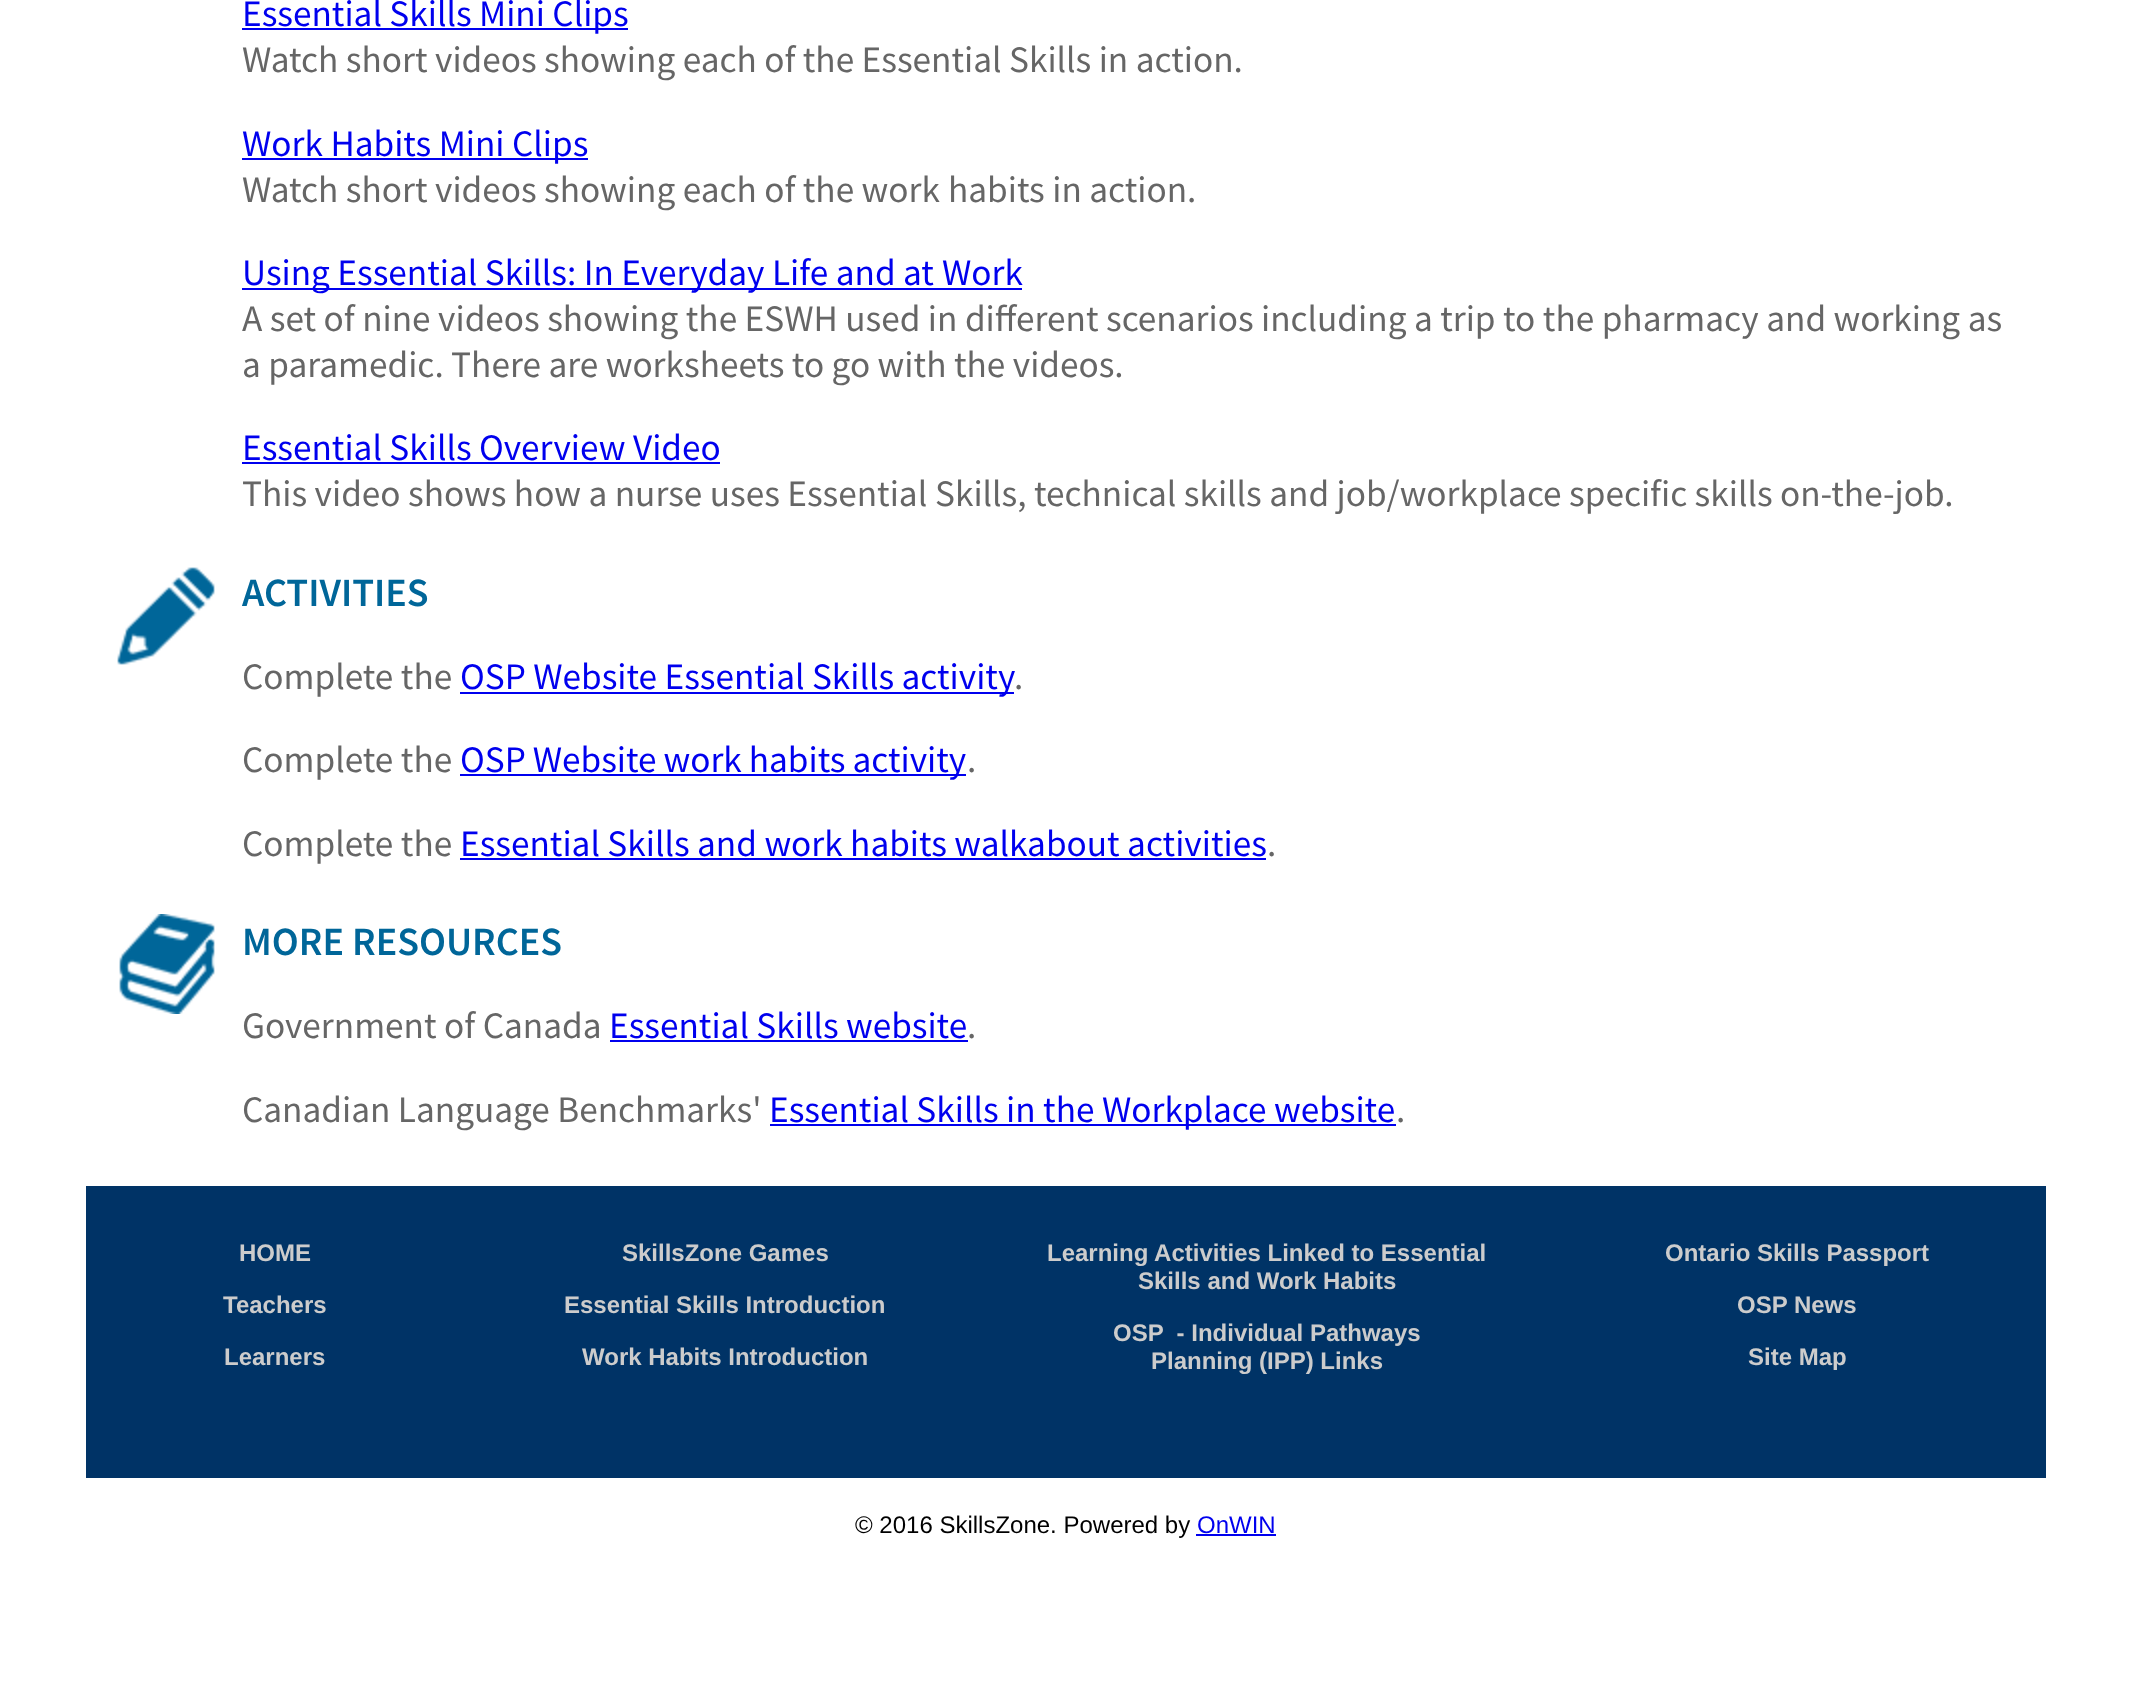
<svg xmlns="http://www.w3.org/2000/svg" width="2130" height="1706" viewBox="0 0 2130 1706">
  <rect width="100%" height="100%" fill="#fff"/>
  <path d="M242 28h386v2H242z" fill="#00e"/>
  <path d="M242 158h346v2H242z" fill="#00e"/>
  <path d="M242 288h780v2H242z" fill="#00e"/>
  <path d="M242 462h478v2H242z" fill="#00e"/>
  <image x="117" y="567" width="98" height="98" href="img/1.png"/>
  <path d="M460 692h554v2H460z" fill="#00e"/>
  <path d="M460 774h506v2H460z" fill="#00e"/>
  <path d="M460 858h806v2H460z" fill="#00e"/>
  <image x="119" y="914" width="96" height="100" href="img/2.png"/>
  <path d="M610 1040h358v2H610z" fill="#00e"/>
  <path d="M770 1124h626v2H770z" fill="#00e"/>
  <path d="M86 1186h1960v292H86z" fill="#036"/>
  <path d="M1196 1534h80v2H1196z" fill="#00e"/>
  <text x="242" y="26" font-family="Source Sans Pro" font-size="37.3" fill="#00e">Essential Skills Mini Clips</text>
  <g font-family="Source Sans Pro" font-size="37.3" fill="#666">
    <text x="242" y="72">Watch short videos showing each of the Essential</text>
    <text x="1009" y="72">Skills in action.</text>
  </g>
  <text x="242" y="156" font-family="Source Sans Pro" font-size="37.3" fill="#00e">Work Habits Mini Clips</text>
  <g font-family="Source Sans Pro" font-size="37.3" fill="#666">
    <text x="242" y="202">Watch short videos showing each of the work</text>
    <text x="948" y="202">habits in action.</text>
  </g>
  <g font-family="Source Sans Pro" font-size="37.3" fill="#00e">
    <text x="242" y="285">Using Essential Skills: In Everyday Life and at</text>
    <text x="942" y="285">Work</text>
  </g>
  <g font-family="Source Sans Pro" font-size="37.3" fill="#666">
    <text x="242" y="331">A set of nine videos showing the ESWH used in different</text>
    <text x="1106" y="331">scenarios including a trip to the pharmacy and working as</text>
    <text x="242" y="377">a paramedic. There are worksheets to go with the videos.</text>
  </g>
  <text x="242" y="460" font-family="Source Sans Pro" font-size="37.3" fill="#00e">Essential Skills Overview Video</text>
  <g font-family="Source Sans Pro" font-size="37.3" fill="#666">
    <text x="242" y="506">This video shows how a nurse uses Essential</text>
    <text x="935" y="506">Skills, technical skills and job/workplace specific skills on-the-job.</text>
  </g>
  <text x="242" y="606" font-family="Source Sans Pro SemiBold" font-size="40" font-weight="600" fill="#069">ACTIVITIES</text>
  <text x="242" y="689" font-family="Source Sans Pro" font-size="37.3" fill="#666">Complete the</text>
  <text x="460" y="689" font-family="Source Sans Pro" font-size="37.3" fill="#00e">OSP Website Essential Skills activity</text>
  <g font-family="Source Sans Pro" font-size="37.3" fill="#666">
    <text x="1014" y="689">.</text>
    <text x="242" y="772">Complete the</text>
  </g>
  <text x="460" y="772" word-spacing="-0.5" font-family="Source Sans Pro" font-size="37.3" fill="#00e">OSP Website work habits activity</text>
  <g font-family="Source Sans Pro" font-size="37.3" fill="#666">
    <text x="967" y="772">.</text>
    <text x="242" y="856">Complete the</text>
  </g>
  <text x="460" y="856" font-family="Source Sans Pro" font-size="37.3" fill="#00e">Essential Skills and work habits walkabout activities</text>
  <text x="1267" y="856" font-family="Source Sans Pro" font-size="37.3" fill="#666">.</text>
  <text x="242" y="955" font-family="Source Sans Pro SemiBold" font-size="40" font-weight="600" fill="#069">MORE RESOURCES</text>
  <text x="242" y="1038" font-family="Source Sans Pro" font-size="37.3" fill="#666">Government of Canada</text>
  <text x="609" y="1038" font-family="Source Sans Pro" font-size="37.3" fill="#00e">Essential Skills website</text>
  <g font-family="Source Sans Pro" font-size="37.3" fill="#666">
    <text x="967" y="1038">.</text>
    <text x="242" y="1122">Canadian Language Benchmarks'</text>
  </g>
  <text x="769" y="1122" font-family="Source Sans Pro" font-size="37.3" fill="#00e">Essential Skills in the Workplace website</text>
  <text x="1396" y="1122" font-family="Source Sans Pro" font-size="37.3" fill="#666">.</text>
  <g font-family="Liberation Sans" font-size="24" font-weight="bold" fill="#ccc">
    <text x="239" y="1261">HOME</text>
    <text x="223" y="1313">Teachers</text>
    <text x="224" y="1365">Learners</text>
    <text x="622" y="1261">SkillsZone Games</text>
    <text x="564" y="1313">Essential Skills Introduction</text>
    <text x="582" y="1365">Work Habits Introduction</text>
    <text x="1047" y="1261">Learning Activities Linked to Essential</text>
    <text x="1138" y="1289">Skills and Work Habits</text>
    <text x="1113" y="1341" xml:space="preserve">OSP  - Individual Pathways</text>
    <text x="1151" y="1369">Planning (IPP) Links</text>
    <text x="1665" y="1261">Ontario Skills Passport</text>
    <text x="1737" y="1313">OSP News</text>
    <text x="1748" y="1365">Site Map</text>
  </g>
  <text x="855" y="1533" font-family="Liberation Sans" font-size="24" fill="#000">© 2016 SkillsZone. Powered by</text>
  <text x="1197" y="1533" font-family="Liberation Sans" font-size="24" fill="#00e">OnWIN</text>
</svg>
